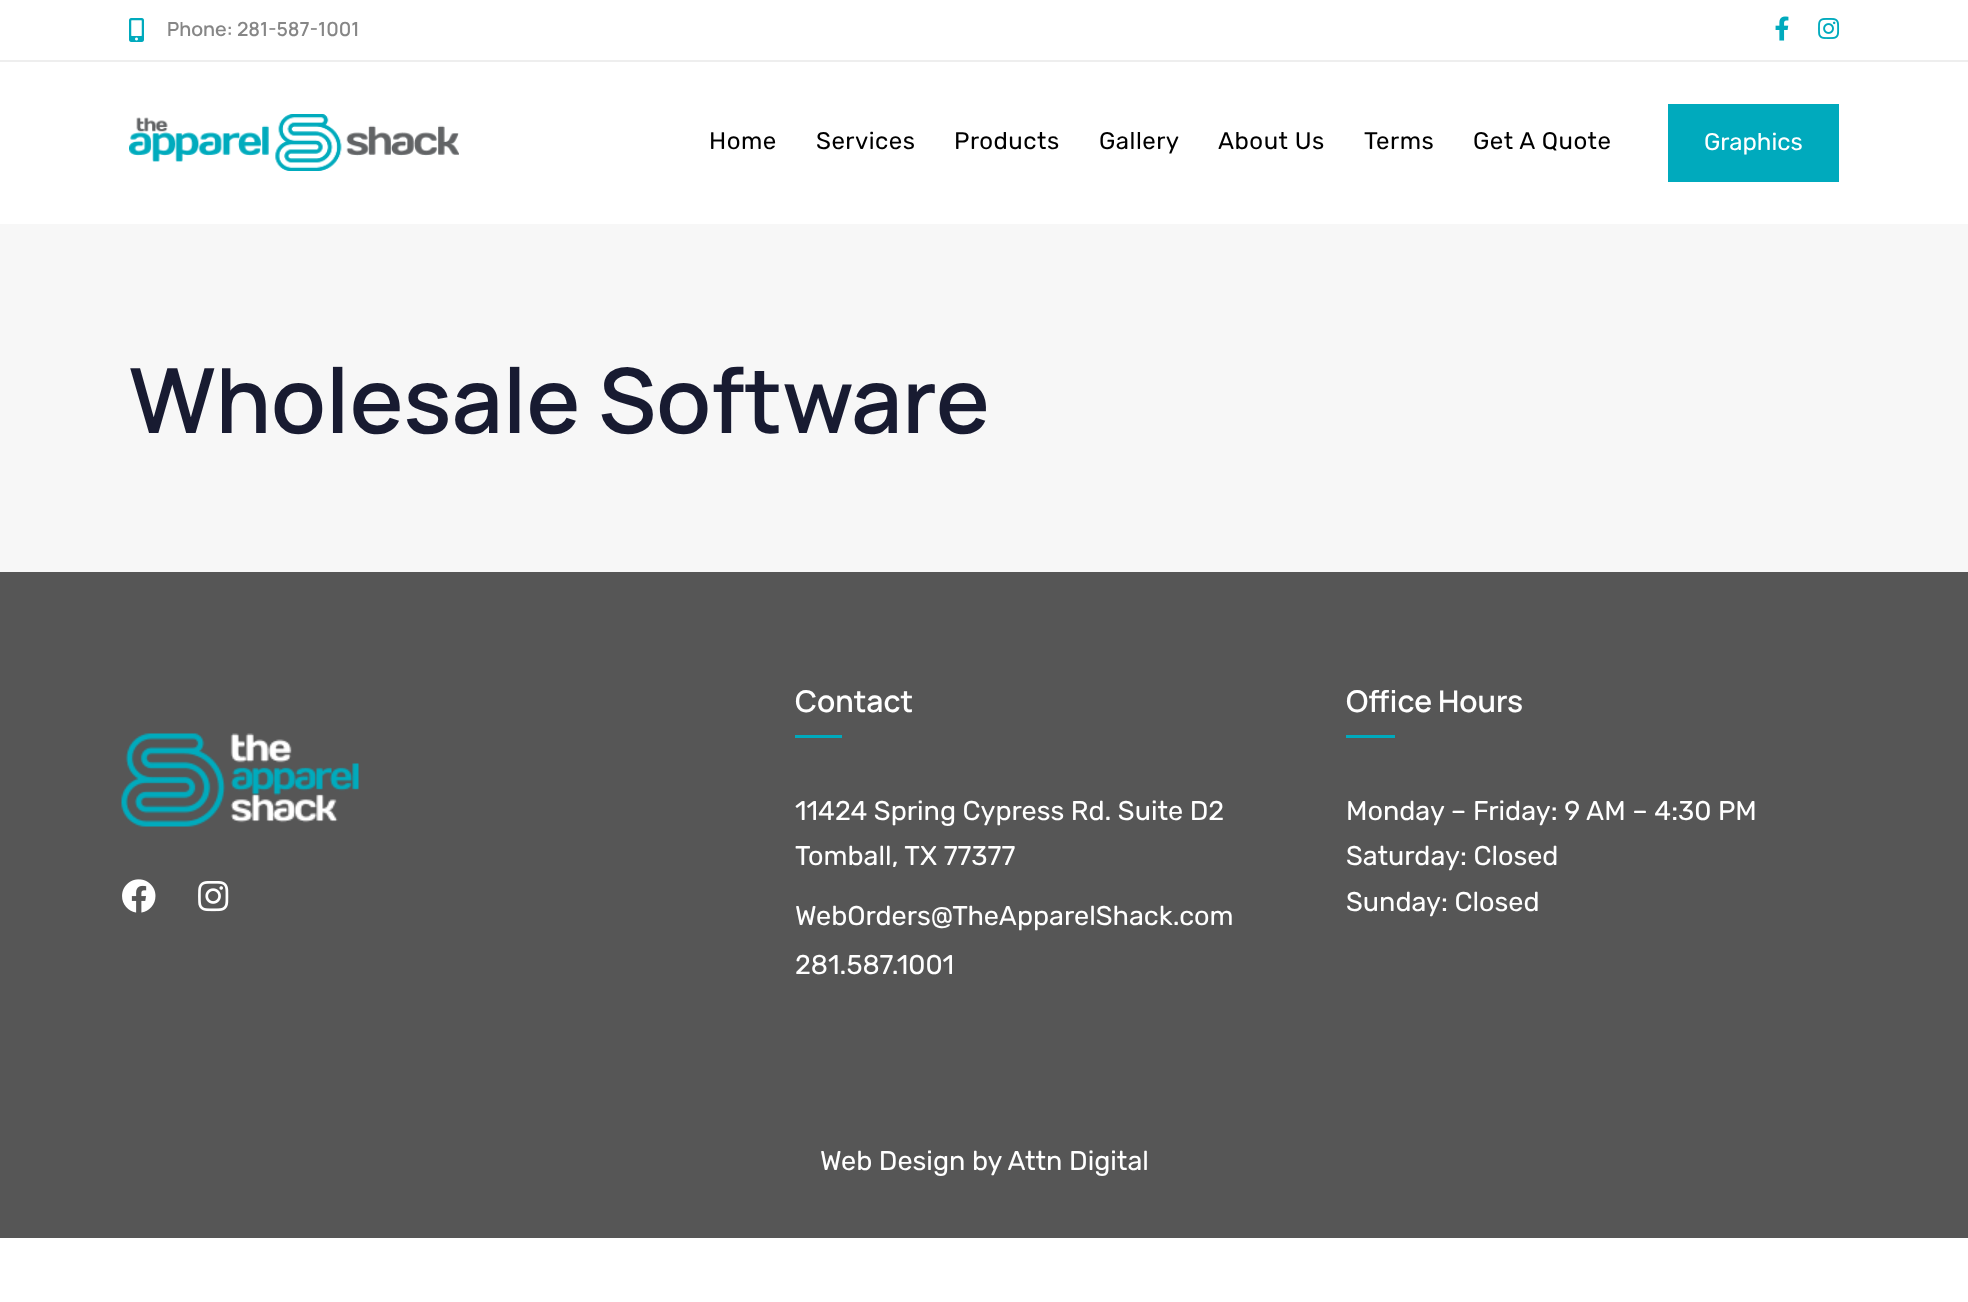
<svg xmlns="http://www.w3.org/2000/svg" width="1968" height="1302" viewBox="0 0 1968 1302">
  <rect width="100%" height="100%" fill="#fff"/>
  <path d="M0 60h1968v2H0z" fill="#eee"/>
  <image x="129" y="18" width="15" height="24" href="img/1.png"/>
  <image x="1775" y="16" width="14" height="25" href="img/2.png"/>
  <image x="1818" y="18" width="22" height="21" href="img/3.png"/>
  <image x="129" y="114" width="330" height="57" href="img/4.png"/>
  <path d="M1668 104h171v78H1668z" fill="#00aabd"/>
  <path d="M0 224h1968v348H0z" fill="#f7f7f7"/>
  <path d="M0 572h1968v666H0z" fill="#565656"/>
  <image x="121" y="733" width="238" height="94" href="img/5.png"/>
  <image x="122" y="879" width="34" height="34" href="img/6.png"/>
  <image x="198" y="881" width="31" height="31" href="img/7.png"/>
  <path d="M795 735h47v3H795z" fill="#00aabd"/>
  <path d="M1346 735h49v3H1346z" fill="#00aabd"/>
  <text x="167" y="36" font-family="Manrope" font-size="19.5" font-weight="200" fill="#868686">Phone: 281-587-1001</text>
  <g font-family="Rubik" font-size="24" font-weight="300" letter-spacing="0.5" fill="#000">
    <text x="709" y="149">Home</text>
    <text x="816" y="149">Services</text>
    <text x="954" y="149">Products</text>
    <text x="1099" y="149">Gallery</text>
    <text x="1218" y="149">About Us</text>
    <text x="1364" y="149">Terms</text>
    <text x="1473" y="149">Get A Quote</text>
  </g>
  <text x="1704" y="150" font-family="Rubik" font-size="24" font-weight="300" fill="#fff">Graphics</text>
  <text x="129" y="433" font-family="Manrope" font-size="90" font-weight="200" fill="#181b31">Wholesale Software</text>
  <text x="795" y="712" font-family="Manrope" font-size="30" font-weight="200" fill="#fff">Contact</text>
  <g font-family="Rubik" font-size="27" font-weight="300" fill="#fff">
    <text x="795" y="820">11424 Spring Cypress Rd. Suite D2</text>
    <text x="795" y="865">Tomball, TX 77377</text>
    <text x="795" y="925">WebOrders@TheApparelShack.com</text>
    <text x="795" y="974">281.587.1001</text>
  </g>
  <text x="1346" y="712" font-family="Manrope" font-size="30" font-weight="200" fill="#fff">Office Hours</text>
  <g font-family="Rubik" font-size="27" font-weight="300" fill="#fff">
    <text x="1346" y="820">Monday – Friday: 9 AM – 4:30 PM</text>
    <text x="1346" y="865">Saturday: Closed</text>
    <text x="1346" y="911">Sunday: Closed</text>
    <text x="820" y="1170">Web Design by Attn Digital</text>
  </g>
</svg>
